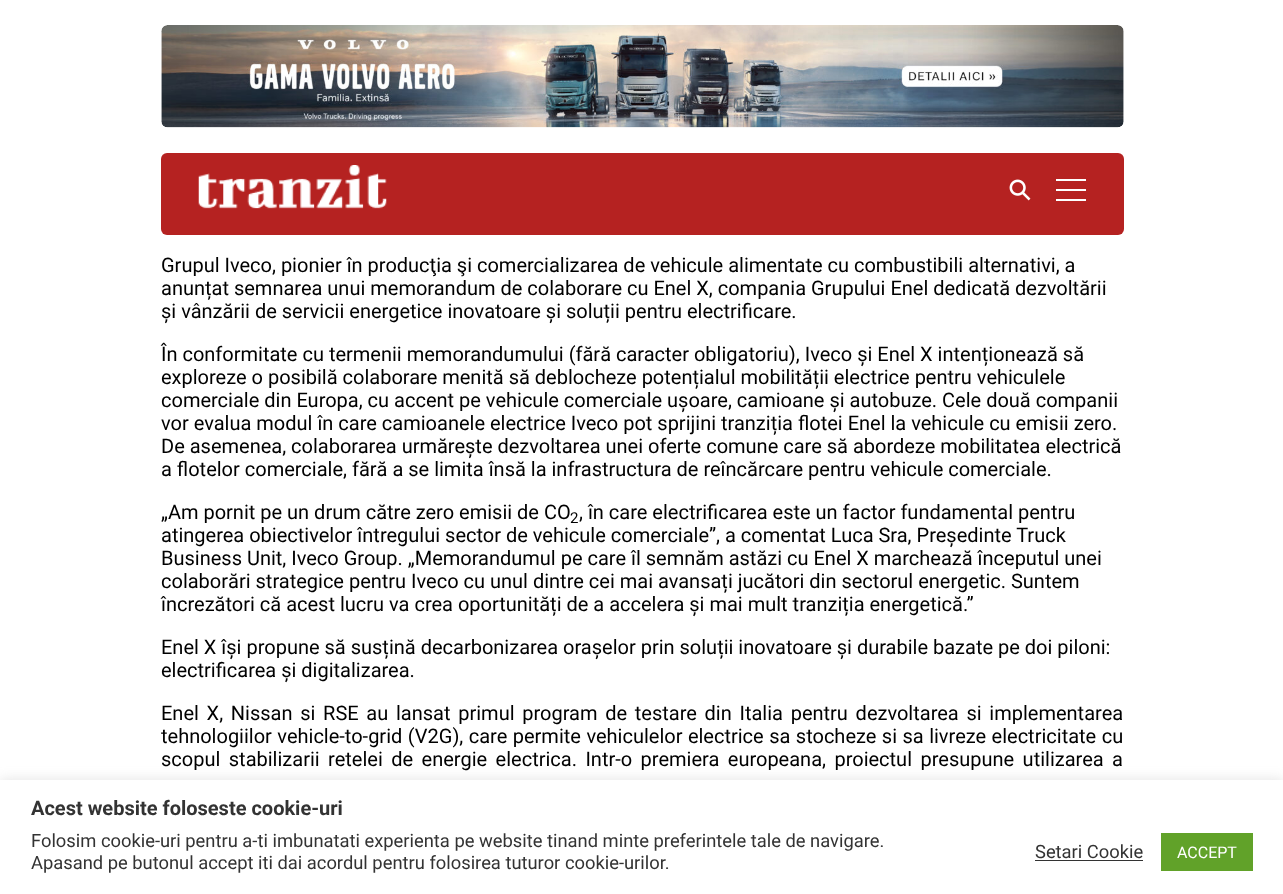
<svg xmlns="http://www.w3.org/2000/svg" width="1283" height="894" viewBox="0 0 1283 894">
  <rect width="100%" height="100%" fill="#fff"/>
  <image x="161" y="25" width="963" height="103" href="img/1.png"/>
  <rect x="161" y="153" width="963" height="82" rx="6" fill="#b52221"/>
  <image x="198" y="165" width="189" height="44" href="img/2.png"/>
  <image x="1009" y="179" width="22" height="22" href="img/3.png"/>
  <path d="M1056 179h30v2H1056z" fill="#fff"/>
  <path d="M1056 189h30v2H1056z" fill="#fff"/>
  <path d="M1056 199h30v2H1056z" fill="#fff"/>
  <path d="M0 779h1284v115H0z" fill="#acabab4d" filter="blur(6px)"/>
  <path d="M0 780h1283v114H0z" fill="#fff"/>
  <path d="M1035 860h108v1H1035z" fill="#333"/>
  <path d="M1161 833h92v38H1161z" fill="#61a229"/>
  <g font-family="Roboto" font-size="20" fill="#000">
    <text x="161" y="272">Grupul Iveco, pionier în producţia şi comercializarea de vehicule alimentate cu combustibili alternativi, a</text>
    <text x="161" y="295">anunțat semnarea unui memorandum de colaborare cu Enel X, compania Grupului Enel dedicată dezvoltării</text>
    <text x="161" y="318">și vânzării de servicii energetice inovatoare și soluții pentru electrificare.</text>
    <text x="161" y="361">În conformitate cu termenii memorandumului (fără caracter obligatoriu), Iveco și Enel X intenționează să</text>
    <text x="161" y="384">exploreze o posibilă colaborare menită să deblocheze potențialul mobilității electrice pentru vehiculele</text>
    <text x="161" y="407">comerciale din Europa, cu accent pe vehicule comerciale ușoare, camioane și autobuze. Cele două companii</text>
    <text x="161" y="430">vor evalua modul în care camioanele electrice Iveco pot sprijini tranziția flotei Enel la vehicule cu emisii zero.</text>
    <text x="161" y="453">De asemenea, colaborarea urmărește dezvoltarea unei oferte comune care să abordeze mobilitatea electrică</text>
    <text x="161" y="476">a flotelor comerciale, fără a se limita însă la infrastructura de reîncărcare pentru vehicule comerciale.</text>
    <text x="161" y="519">„Am pornit pe un drum către zero emisii de CO</text>
  </g>
  <text x="570" y="523" font-family="Roboto" font-size="15" fill="#000">2</text>
  <g font-family="Roboto" font-size="20" fill="#000">
    <text x="579" y="519">, în care electrificarea este un factor fundamental pentru</text>
    <text x="161" y="542">atingerea obiectivelor întregului sector de vehicule comerciale”, a comentat Luca Sra, Președinte Truck</text>
    <text x="161" y="565">Business Unit, Iveco Group. „Memorandumul pe care îl semnăm astăzi cu Enel X marchează începutul unei</text>
    <text x="161" y="588">colaborări strategice pentru Iveco cu unul dintre cei mai avansați jucători din sectorul energetic. Suntem</text>
    <text x="161" y="611">încrezători că acest lucru va crea oportunități de a accelera și mai mult tranziția energetică.”</text>
    <text x="161" y="654">Enel X își propune să susțină decarbonizarea orașelor prin soluții inovatoare și durabile bazate pe doi piloni:</text>
    <text x="161" y="677">electrificarea și digitalizarea.</text>
    <text x="161" y="720" word-spacing="2.75">Enel X, Nissan si RSE au lansat primul program de testare din Italia pentru dezvoltarea si implementarea</text>
    <text x="161" y="743" word-spacing="0.5">tehnologiilor vehicle-to-grid (V2G), care permite vehiculelor electrice sa stocheze si sa livreze electricitate cu</text>
    <text x="161" y="766" word-spacing="3.5">scopul stabilizarii retelei de energie electrica. Intr-o premiera europeana, proiectul presupune utilizarea a</text>
  </g>
  <text x="31" y="815" font-family="Roboto" font-size="20" font-weight="bold" fill="#333">Acest website foloseste cookie-uri</text>
  <g font-family="Roboto" font-size="18.35" fill="#333">
    <text x="31" y="847">Folosim cookie-uri pentru a-ti imbunatati experienta pe website tinand minte preferintele tale de navigare.</text>
    <text x="31" y="869">Apasand pe butonul accept iti dai acordul pentru folosirea tuturor cookie-urilor.</text>
    <text x="1035" y="858">Setari Cookie</text>
  </g>
  <text x="1177" y="858" font-family="Roboto" font-size="16" fill="#fff">ACCEPT</text>
</svg>
